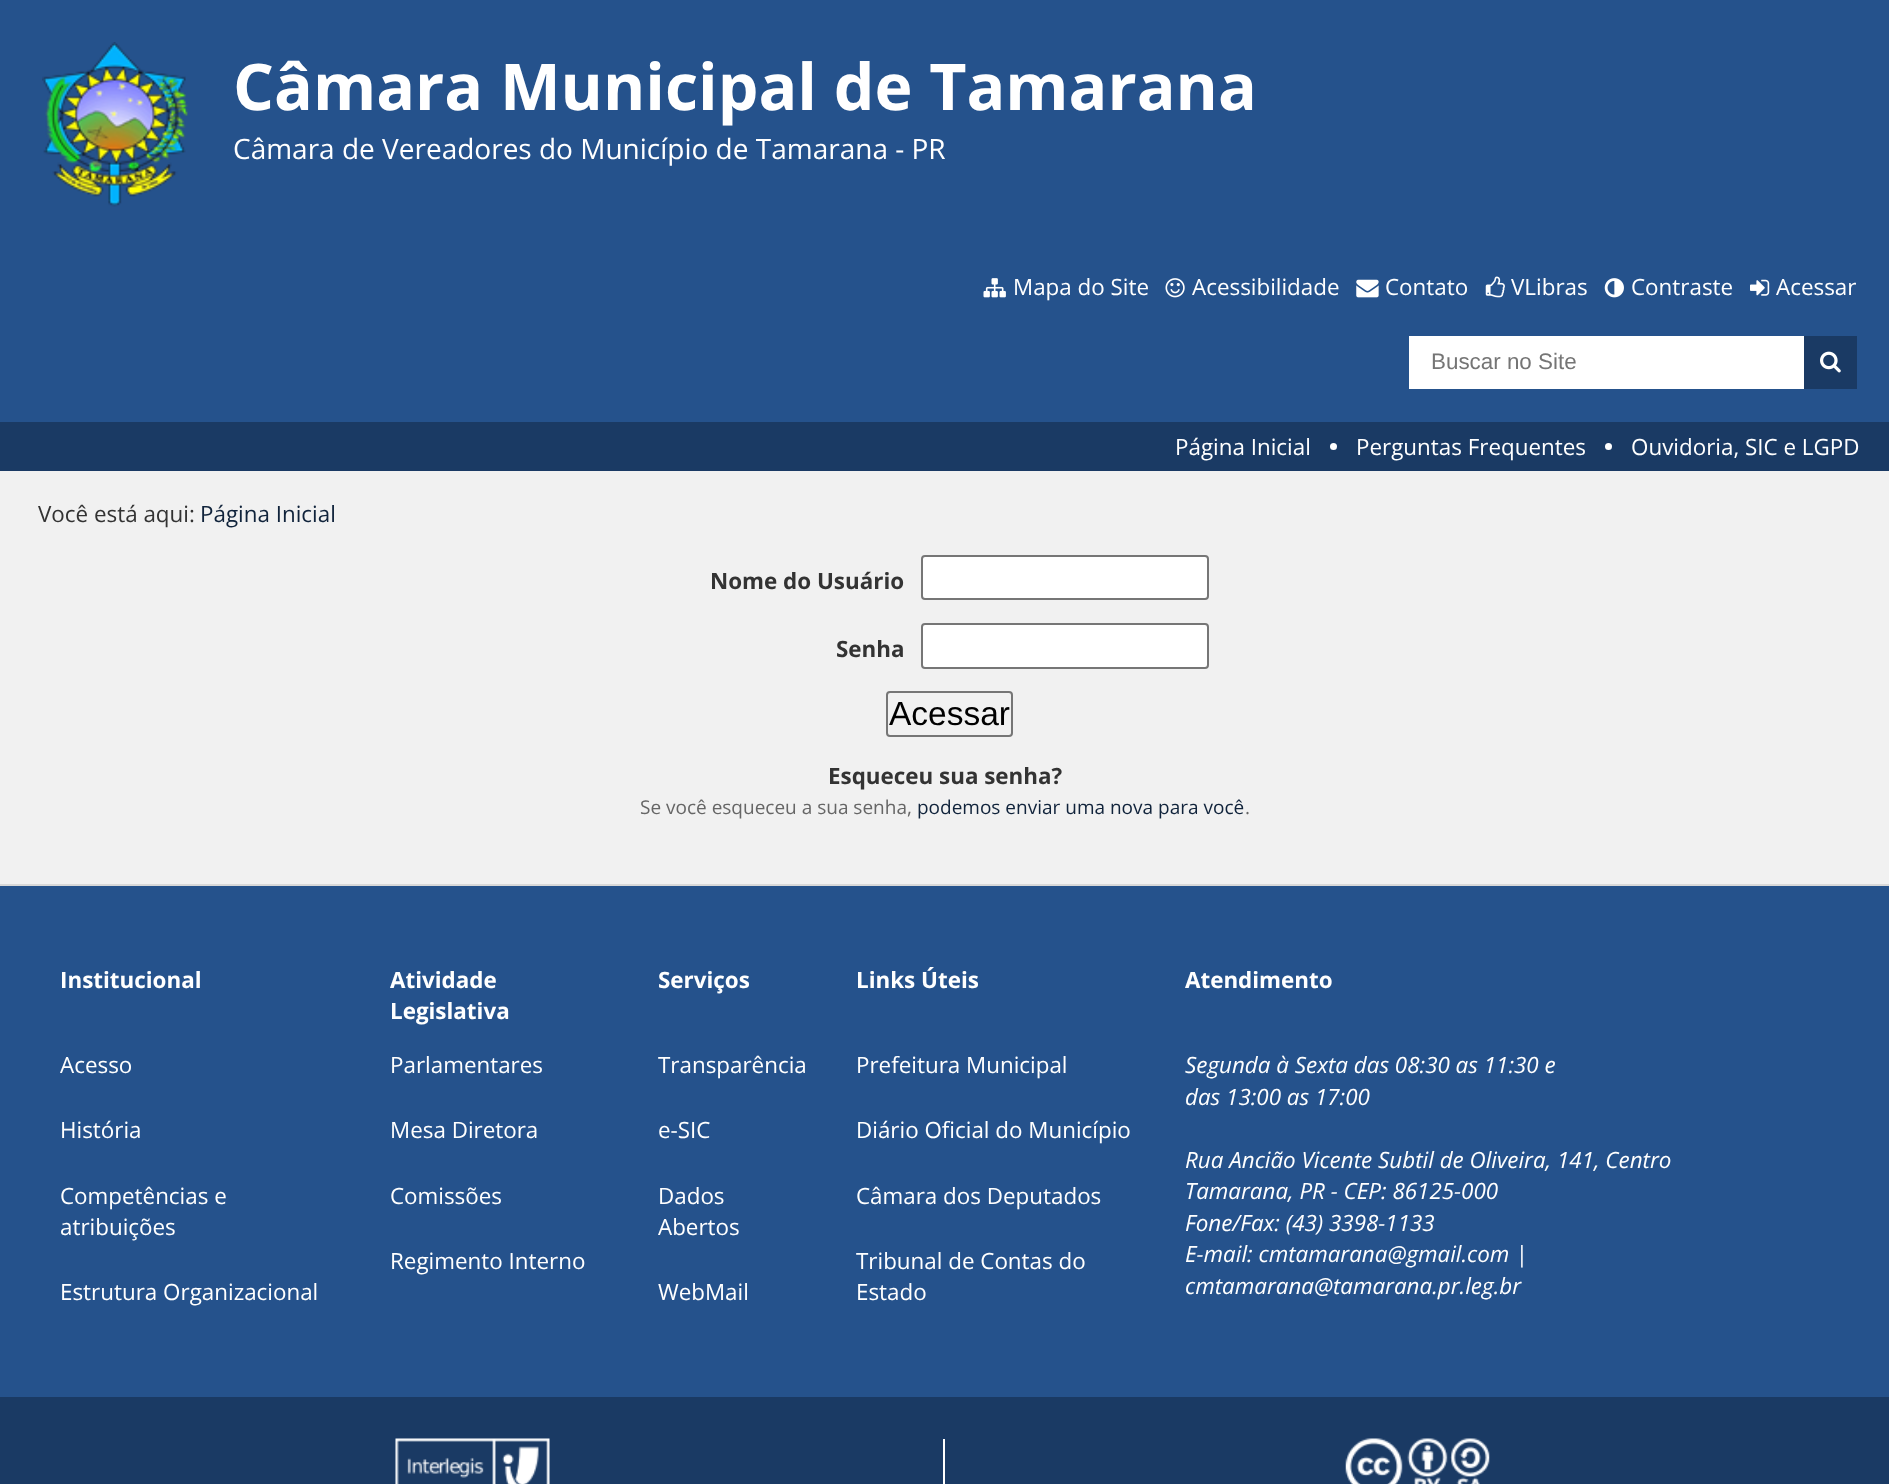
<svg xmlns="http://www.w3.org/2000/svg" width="1889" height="1484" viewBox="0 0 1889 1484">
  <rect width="100%" height="100%" fill="#f1f1f1"/>
  <path d="M0 0h1889v422H0z" fill="#25528c"/>
  <image x="42" y="42" width="146" height="165" href="img/1.png"/>
  <image x="983" y="278" width="23" height="20" href="img/2.png"/>
  <image x="1165" y="278" width="20" height="20" href="img/3.png"/>
  <image x="1356" y="279" width="23" height="19" href="img/4.png"/>
  <image x="1485" y="276" width="20" height="22" href="img/5.png"/>
  <image x="1604" y="278" width="20" height="20" href="img/6.png"/>
  <image x="1750" y="279" width="20" height="17" href="img/7.png"/>
  <path d="M1409 336h395v53H1409z" fill="#fff"/>
  <path d="M1804 336h53v53H1804z" fill="#1a3a64"/>
  <image x="1820" y="351" width="21" height="22" href="img/8.png"/>
  <path d="M0 422h1889v49H0z" fill="#1a3a64"/>
  <circle cx="1333.5" cy="446.5" r="3.5" fill="#fff"/>
  <circle cx="1608.5" cy="446.5" r="3.5" fill="#fff"/>
  <rect x="922" y="556" width="286" height="43" rx="3" fill="#fff" stroke="#767676" stroke-width="2"/>
  <rect x="922" y="624" width="286" height="44" rx="3" fill="#fff" stroke="#767676" stroke-width="2"/>
  <rect x="887" y="692" width="125" height="44" rx="3" fill="none" stroke="#767676" stroke-width="2"/>
  <path d="M0 886h1889v511H0z" fill="#25528c"/>
  <path d="M0 884h1889v2H0z" fill="#d8d8d8"/>
  <path d="M0 1397h1889v87H0z" fill="#1a3a64"/>
  <image x="395" y="1438" width="155" height="46" href="img/9.png"/>
  <path d="M943 1439h2v45H943z" fill="#fff"/>
  <image x="1345" y="1438" width="145" height="46" href="img/10.png"/>
  <text x="233" y="110" font-family="Open Sans" font-size="64.4" font-weight="bold" fill="#fff">Câmara Municipal de Tamarana</text>
  <text x="233" y="159" font-family="Open Sans" font-size="28" fill="#fff">Câmara de Vereadores do Município de Tamarana - PR</text>
  <g font-family="Open Sans" font-size="22.4" fill="#fff">
    <text x="1013" y="295">Mapa do Site</text>
    <text x="1192" y="295">Acessibilidade</text>
    <text x="1385" y="295">Contato</text>
    <text x="1511" y="295">VLibras</text>
    <text x="1631" y="295">Contraste</text>
    <text x="1776" y="295">Acessar</text>
  </g>
  <text x="1431" y="369" font-family="Liberation Sans" font-size="22.4" fill="#757575">Buscar no Site</text>
  <g font-family="Open Sans" font-size="22.4" fill="#fff">
    <text x="1175" y="455">Página Inicial</text>
    <text x="1356" y="455">Perguntas Frequentes</text>
    <text x="1631" y="455">Ouvidoria, SIC e LGPD</text>
  </g>
  <text x="38" y="522" font-family="Open Sans" font-size="22.4" fill="#333">Você está aqui:</text>
  <text x="200" y="522" font-family="Open Sans" font-size="22.4" fill="#10233b">Página Inicial</text>
  <g font-family="Open Sans" font-size="22.4" font-weight="bold" fill="#333">
    <text x="710" y="589">Nome do Usuário</text>
    <text x="836" y="657">Senha</text>
  </g>
  <text x="889" y="725" font-family="Liberation Sans" font-size="33.5" fill="#000">Acessar</text>
  <text x="828" y="784" font-family="Open Sans" font-size="22.4" font-weight="bold" fill="#333">Esqueceu sua senha?</text>
  <text x="640" y="814" font-family="Open Sans" font-size="19" fill="#666">Se você esqueceu a sua senha,</text>
  <text x="917" y="814" font-family="Open Sans" font-size="19" fill="#10233b">podemos enviar uma nova para você</text>
  <text x="1245" y="814" font-family="Open Sans" font-size="19" fill="#666">.</text>
  <g font-family="Open Sans" font-size="22.4" font-weight="bold" fill="#fff">
    <text x="60" y="988">Institucional</text>
    <text x="390" y="988">Atividade</text>
    <text x="390" y="1019">Legislativa</text>
    <text x="658" y="988">Serviços</text>
    <text x="856" y="988">Links Úteis</text>
    <text x="1185" y="988">Atendimento</text>
  </g>
  <g font-family="Open Sans" font-size="22.4" fill="#fff">
    <text x="60" y="1073">Acesso</text>
    <text x="60" y="1138">História</text>
    <text x="60" y="1204">Competências e</text>
    <text x="60" y="1235">atribuições</text>
    <text x="60" y="1300">Estrutura Organizacional</text>
    <text x="390" y="1073">Parlamentares</text>
    <text x="390" y="1138">Mesa Diretora</text>
    <text x="390" y="1204">Comissões</text>
    <text x="390" y="1269">Regimento Interno</text>
    <text x="658" y="1073">Transparência</text>
    <text x="658" y="1138">e-SIC</text>
    <text x="658" y="1204">Dados</text>
    <text x="658" y="1235">Abertos</text>
    <text x="658" y="1300">WebMail</text>
    <text x="856" y="1073">Prefeitura Municipal</text>
    <text x="856" y="1138">Diário Oficial do Município</text>
    <text x="856" y="1204">Câmara dos Deputados</text>
    <text x="856" y="1269">Tribunal de Contas do</text>
    <text x="856" y="1300">Estado</text>
  </g>
  <g font-family="Open Sans" font-size="22.4" font-style="italic" fill="#fff">
    <text x="1185" y="1073">Segunda à Sexta das 08:30 as 11:30 e</text>
    <text x="1185" y="1105">das 13:00 as 17:00</text>
    <text x="1185" y="1168">Rua Ancião Vicente Subtil de Oliveira, 141, Centro</text>
    <text x="1185" y="1199">Tamarana, PR - CEP: 86125-000</text>
    <text x="1185" y="1231">Fone/Fax: (43) 3398-1133</text>
    <text x="1185" y="1262">E-mail: cmtamarana@gmail.com |</text>
    <text x="1185" y="1294">cmtamarana@tamarana.pr.leg.br</text>
  </g>
</svg>
